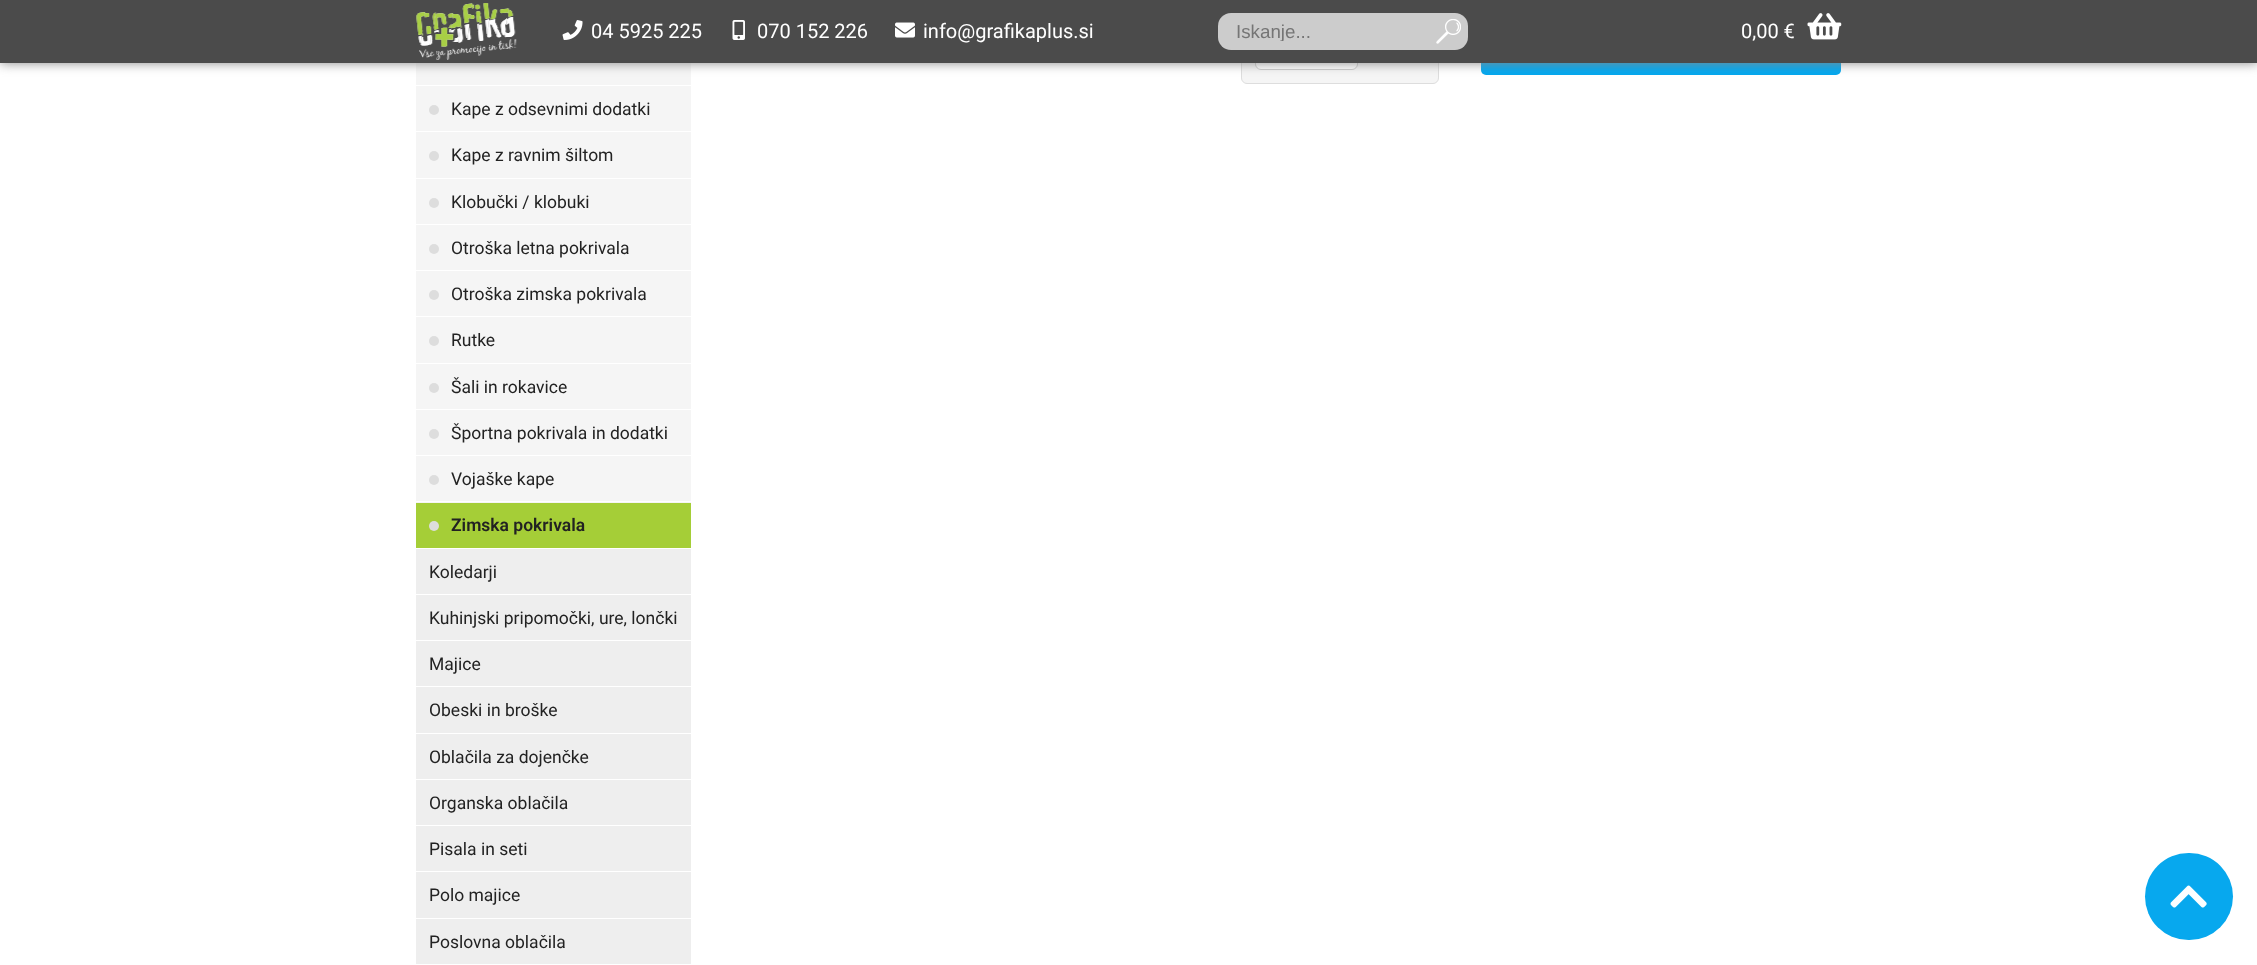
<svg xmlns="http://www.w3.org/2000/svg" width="2257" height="965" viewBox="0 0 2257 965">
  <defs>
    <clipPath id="clip1"><path d="M1236 20h169v21H1236z"/></clipPath>
  </defs>
  <rect width="100%" height="100%" fill="#fff"/>
  <rect x="1241.5" y="-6.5" width="197" height="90" rx="5.5" fill="#f5f5f5" stroke="#ddd"/>
  <rect x="1255.5" y="4.5" width="102" height="65" rx="5.5" fill="#fff" stroke="#ccc"/>
  <rect x="1481" y="-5" width="360" height="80" rx="5" fill="#04a7ee"/>
  <path d="M416 63h275v440H416z" fill="#f5f5f5"/>
  <path d="M0 0h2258v63H0z" fill="#888" filter="blur(6px)"/>
  <path d="M0 0h2257v63H0z" fill="#4b4b4b"/>
  <image x="416" y="3" width="101" height="57" href="img/1.png"/>
  <image x="562" y="20" width="21" height="20" href="img/2.png"/>
  <image x="732" y="20" width="13" height="20" href="img/3.png"/>
  <image x="895" y="22" width="20" height="16" href="img/4.png"/>
  <rect x="1218" y="13" width="250" height="37" rx="13" fill="#ccc"/>
  <image x="1436" y="19" width="25" height="25" href="img/5.png"/>
  <image x="1807" y="13" width="35" height="27" href="img/6.png"/>
  <rect x="2145" y="853" width="88" height="87" rx="43.5" fill="#07a8ee"/>
  <image x="2170" y="885" width="37" height="23" href="img/7.png"/>
  <path d="M416 549h275v415H416z" fill="#eee"/>
  <path d="M416 85h275v1H416z" fill="#fff"/>
  <path d="M416 131h275v1H416z" fill="#fff"/>
  <circle cx="434" cy="110" r="5" fill="#ddd"/>
  <path d="M416 178h275v1H416z" fill="#fff"/>
  <circle cx="434" cy="156" r="5" fill="#ddd"/>
  <path d="M416 224h275v1H416z" fill="#fff"/>
  <circle cx="434" cy="203" r="5" fill="#ddd"/>
  <path d="M416 270h275v1H416z" fill="#fff"/>
  <circle cx="434" cy="249" r="5" fill="#ddd"/>
  <path d="M416 316h275v1H416z" fill="#fff"/>
  <circle cx="434" cy="295" r="5" fill="#ddd"/>
  <path d="M416 363h275v1H416z" fill="#fff"/>
  <circle cx="434" cy="341" r="5" fill="#ddd"/>
  <path d="M416 409h275v1H416z" fill="#fff"/>
  <circle cx="434" cy="388" r="5" fill="#ddd"/>
  <path d="M416 455h275v1H416z" fill="#fff"/>
  <circle cx="434" cy="434" r="5" fill="#ddd"/>
  <path d="M416 501h275v1H416z" fill="#fff"/>
  <circle cx="434" cy="480" r="5" fill="#ddd"/>
  <path d="M416 503h275v45H416z" fill="#a5ce37"/>
  <circle cx="434" cy="526" r="5" fill="#ddd"/>
  <path d="M416 594h275v1H416z" fill="#fff"/>
  <path d="M416 640h275v1H416z" fill="#fff"/>
  <path d="M416 686h275v1H416z" fill="#fff"/>
  <path d="M416 733h275v1H416z" fill="#fff"/>
  <path d="M416 779h275v1H416z" fill="#fff"/>
  <path d="M416 825h275v1H416z" fill="#fff"/>
  <path d="M416 871h275v1H416z" fill="#fff"/>
  <path d="M416 918h275v1H416z" fill="#fff"/>
  <g font-family="Roboto" font-size="20" fill="#fff">
    <text x="591" y="38">04 5925 225</text>
    <text x="757" y="38">070 152 226</text>
    <text x="923" y="38">info@grafikaplus.si</text>
  </g>
  <g clip-path="url(#clip1)">
    <text x="1236" y="38" font-family="Liberation Sans" font-size="18.75" fill="#757575">Iskanje...</text>
  </g>
  <text x="1741" y="38" font-family="Roboto" font-size="20" fill="#fff">0,00 €</text>
  <g font-family="Roboto" font-size="17.5" fill="#222">
    <text x="451" y="115">Kape z odsevnimi dodatki</text>
    <text x="451" y="161">Kape z ravnim šiltom</text>
    <text x="451" y="208">Klobučki / klobuki</text>
    <text x="451" y="254">Otroška letna pokrivala</text>
    <text x="451" y="300">Otroška zimska pokrivala</text>
    <text x="451" y="346">Rutke</text>
    <text x="451" y="393">Šali in rokavice</text>
    <text x="451" y="439">Športna pokrivala in dodatki</text>
    <text x="451" y="485">Vojaške kape</text>
  </g>
  <text x="451" y="531" font-family="Roboto" font-size="17.5" font-weight="600" fill="#222">Zimska pokrivala</text>
  <g font-family="Roboto" font-size="17.5" fill="#222">
    <text x="429" y="578">Koledarji</text>
    <text x="429" y="624">Kuhinjski pripomočki, ure, lončki</text>
    <text x="429" y="670">Majice</text>
    <text x="429" y="716">Obeski in broške</text>
    <text x="429" y="763">Oblačila za dojenčke</text>
    <text x="429" y="809">Organska oblačila</text>
    <text x="429" y="855">Pisala in seti</text>
    <text x="429" y="901">Polo majice</text>
    <text x="429" y="948">Poslovna oblačila</text>
  </g>
</svg>
